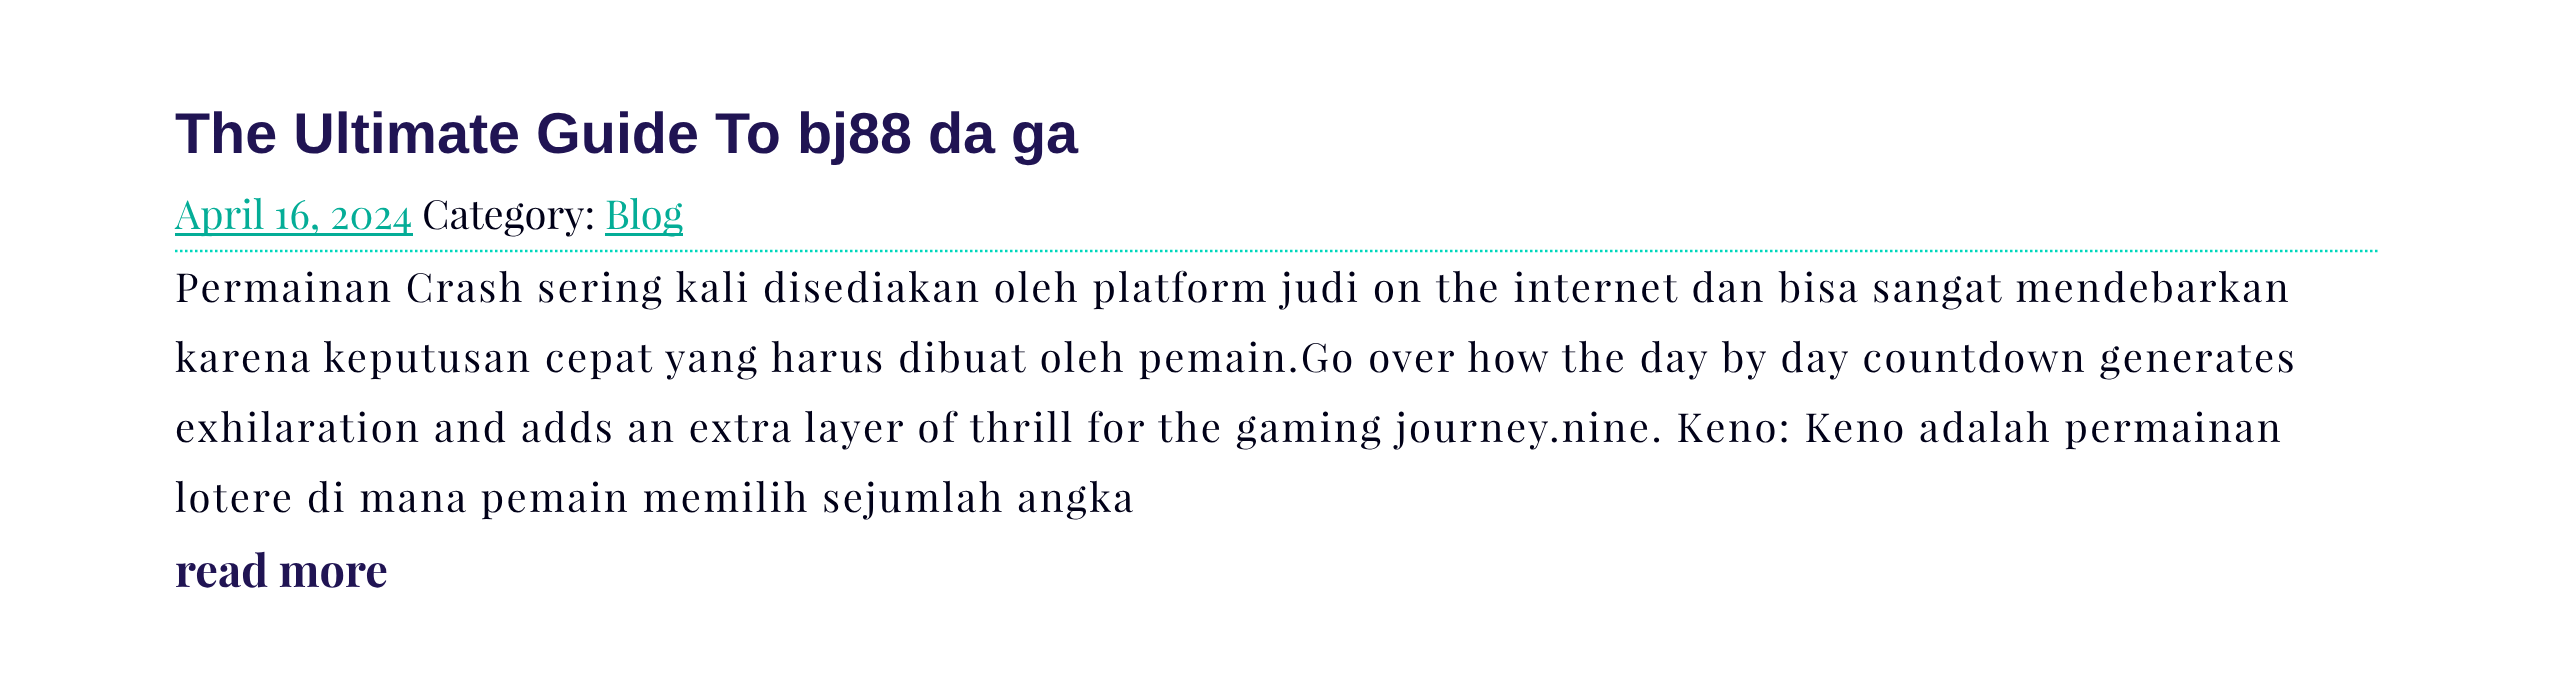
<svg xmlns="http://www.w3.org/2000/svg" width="2551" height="676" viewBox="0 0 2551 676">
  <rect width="100%" height="100%" fill="#fff"/>
  <path d="M175 233h238v3H175z" fill="#04ad97"/>
  <path d="M605 233h78v3H605z" fill="#04ad97"/>
  <path d="M175 251H2377.5" fill="none" stroke="#00d7bd" stroke-width="2.5" stroke-dasharray="2.5 2.5"/>
  <text x="175" y="153" font-family="Liberation Sans" font-size="57.5" font-weight="bold" fill="#201453">The Ultimate Guide To bj88 da ga</text>
  <text x="175" y="229" font-family="Playfair Display" font-size="40" fill="#04ad97">April 16, 2024</text>
  <text x="422" y="229" font-family="Playfair Display" font-size="40" fill="#010118">Category:</text>
  <text x="605" y="229" font-family="Playfair Display" font-size="40" fill="#04ad97">Blog</text>
  <g font-family="Playfair Display" font-size="40" letter-spacing="2.5" fill="#010118">
    <text x="175" y="302">Permainan Crash sering kali disediakan oleh platform judi on the internet dan bisa sangat mendebarkan</text>
    <text x="175" y="372">karena keputusan cepat yang harus dibuat oleh pemain.Go over how the day by day countdown generates</text>
    <text x="175" y="442">exhilaration and adds an extra layer of thrill for the gaming journey.nine. Keno: Keno adalah permainan</text>
    <text x="175" y="512">lotere di mana pemain memilih sejumlah angka</text>
  </g>
  <text x="175" y="587" font-family="Playfair Display" font-size="45" font-weight="bold" fill="#201453">read more</text>
</svg>
